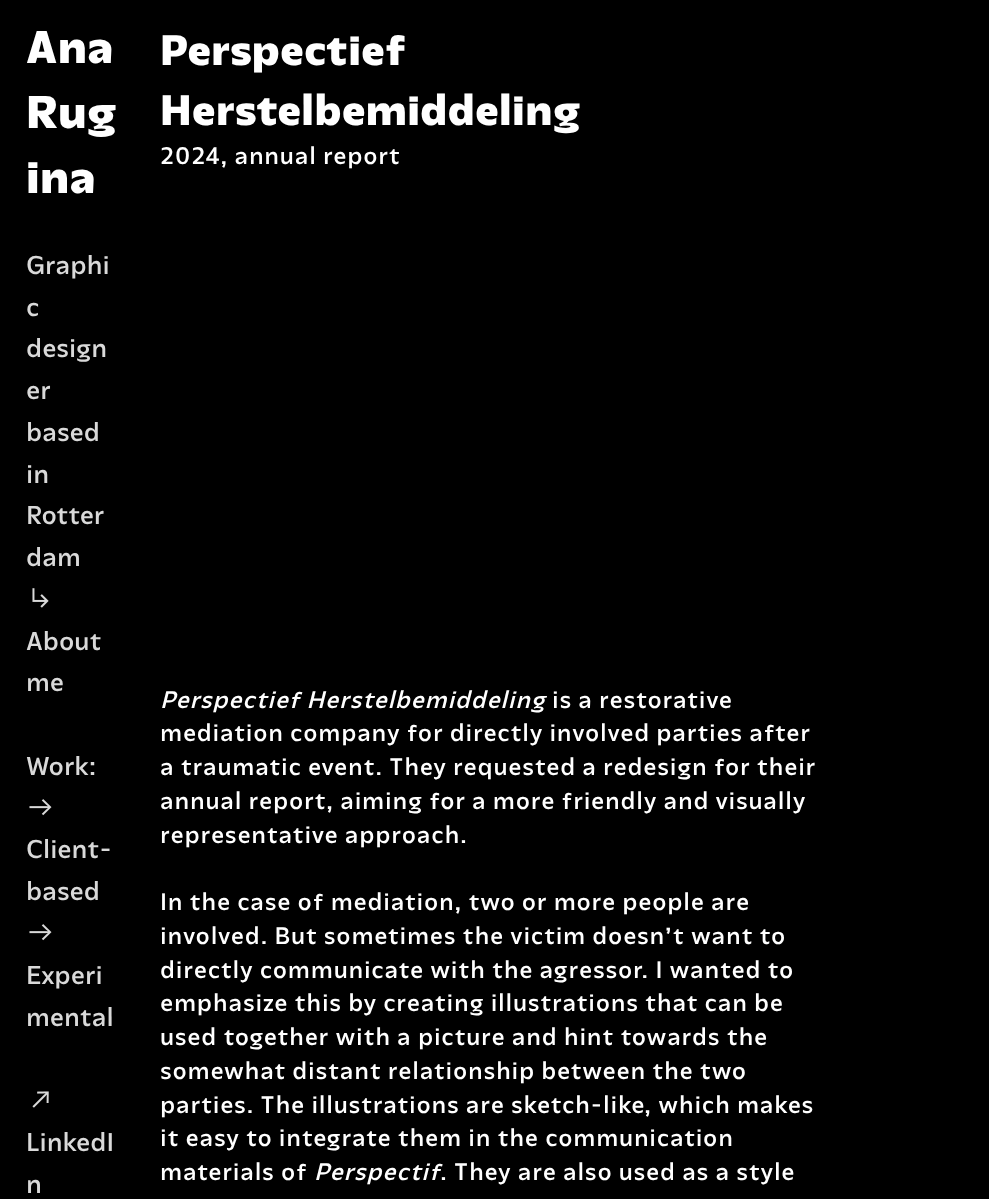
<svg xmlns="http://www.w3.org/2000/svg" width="989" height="1199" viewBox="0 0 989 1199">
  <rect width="100%" height="100%" fill="#000"/>
  <image x="32" y="588" width="17" height="20" href="img/1.png"/>
  <image x="29" y="799" width="23" height="17" href="img/2.png"/>
  <image x="29" y="924" width="23" height="17" href="img/2.png"/>
  <image x="32" y="1091" width="17" height="17" href="img/3.png"/>
  <g font-family="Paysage" font-size="50" font-weight="900" letter-spacing="0.5" fill="#fff">
    <text x="26" y="63">Ana</text>
    <text x="26" y="128">Rug</text>
    <text x="26" y="193">ina</text>
  </g>
  <g font-family="Paysage" font-size="28" font-weight="500" fill="#d9d9d9">
    <text x="26" y="274">Graphi</text>
    <text x="26" y="316">c</text>
    <text x="26" y="357">design</text>
    <text x="26" y="399">er</text>
    <text x="26" y="441">based</text>
    <text x="26" y="483">in</text>
    <text x="26" y="524">Rotter</text>
    <text x="26" y="566">dam</text>
    <text x="26" y="650">About</text>
    <text x="26" y="691">me</text>
    <text x="26" y="775">Work:</text>
    <text x="26" y="858">Client-</text>
    <text x="26" y="900">based</text>
    <text x="26" y="984">Experi</text>
    <text x="26" y="1026">mental</text>
    <text x="26" y="1151">LinkedI</text>
    <text x="26" y="1193">n</text>
  </g>
  <g font-family="Paysage" font-size="46.5" font-weight="900" letter-spacing="0.5" fill="#fff">
    <text x="160" y="65">Perspectief</text>
    <text x="160" y="125">Herstelbemiddeling</text>
  </g>
  <text x="160" y="164" font-family="Paysage" font-size="26" font-weight="500" letter-spacing="0.78" fill="#fff">2024, annual report</text>
  <text x="160" y="708" font-family="Paysage" font-size="26" font-weight="500" font-style="italic" letter-spacing="0.78" fill="#fff">Perspectief Herstelbemiddeling</text>
  <g font-family="Paysage" font-size="26" font-weight="500" letter-spacing="0.78" fill="#fff">
    <text x="552" y="708">is a restorative</text>
    <text x="160" y="741">mediation company for directly involved parties after</text>
    <text x="160" y="775">a traumatic event. They requested a redesign for their</text>
    <text x="160" y="809">annual report, aiming for a more friendly and visually</text>
    <text x="160" y="843">representative approach.</text>
    <text x="160" y="910">In the case of mediation, two or more people are</text>
    <text x="160" y="944">involved. But sometimes the victim doesn’t want to</text>
    <text x="160" y="978">directly communicate with the agressor. I wanted to</text>
    <text x="160" y="1011">emphasize this by creating illustrations that can be</text>
    <text x="160" y="1045">used together with a picture and hint towards the</text>
    <text x="160" y="1079">somewhat distant relationship between the two</text>
    <text x="160" y="1113">parties. The illustrations are sketch-like, which makes</text>
    <text x="160" y="1146">it easy to integrate them in the communication</text>
    <text x="160" y="1180">materials of</text>
  </g>
  <text x="314" y="1180" font-family="Paysage" font-size="26" font-weight="500" font-style="italic" letter-spacing="0.78" fill="#fff">Perspectif</text>
  <text x="440" y="1180" font-family="Paysage" font-size="26" font-weight="500" letter-spacing="0.78" fill="#fff">. They are also used as a style</text>
</svg>
